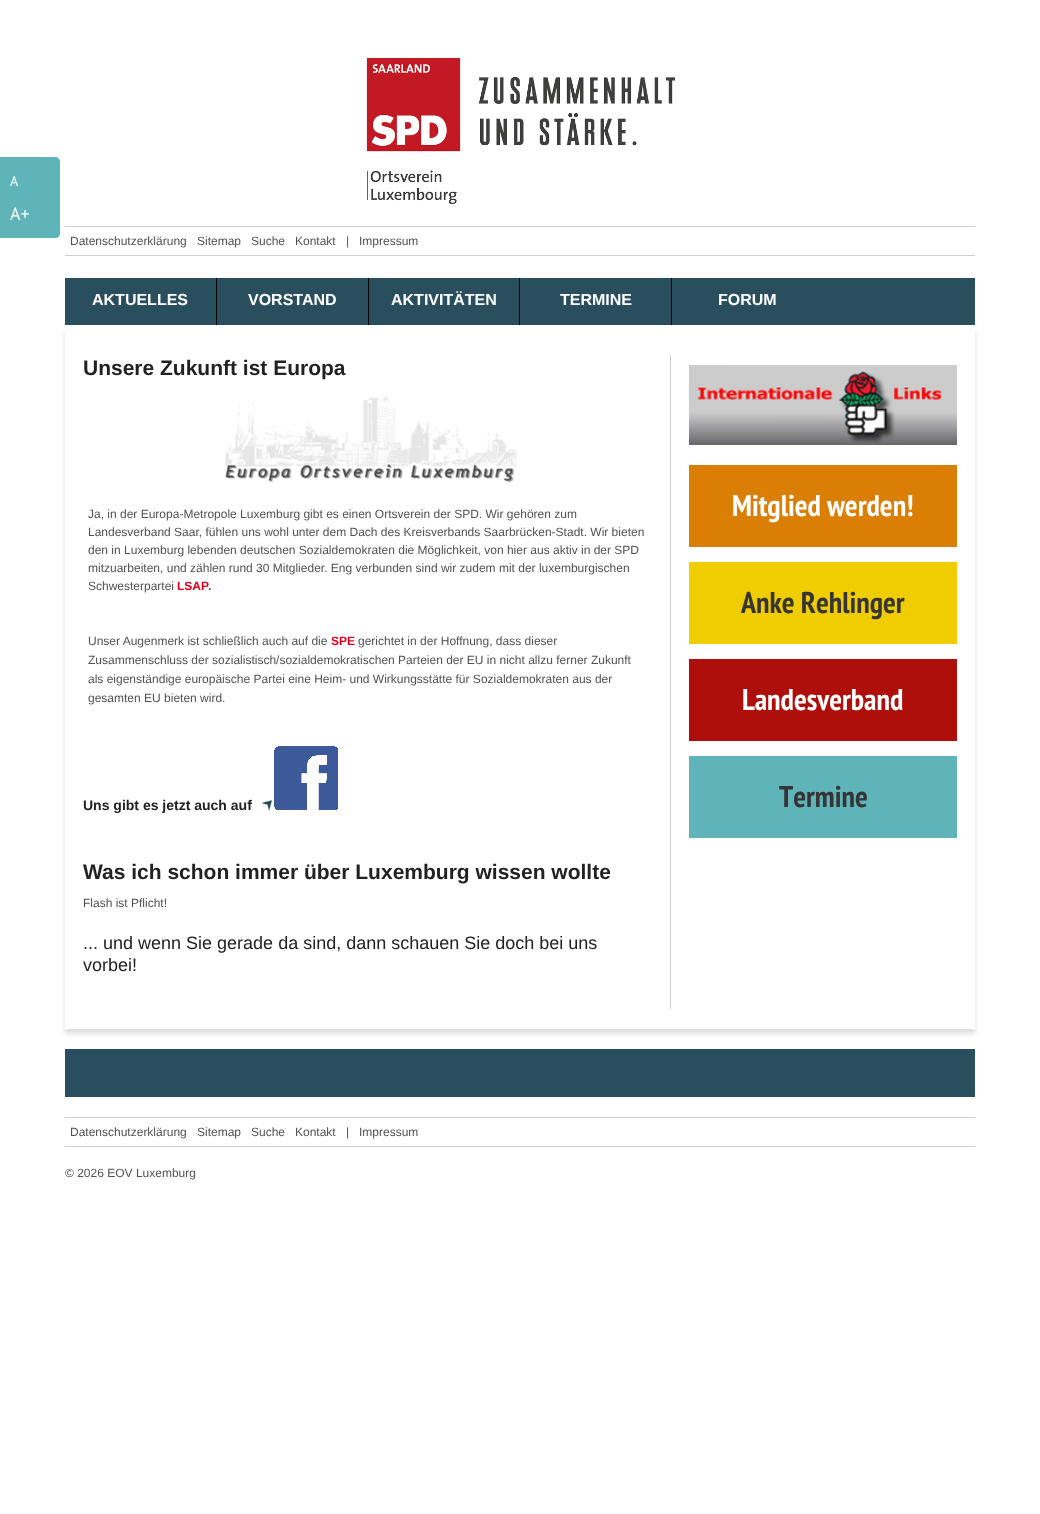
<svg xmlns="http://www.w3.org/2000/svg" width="1040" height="1514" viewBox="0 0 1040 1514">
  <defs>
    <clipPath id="clip1"><path d="M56 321H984V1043H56ZM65 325H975V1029H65Z" clip-rule="evenodd"/></clipPath>
  </defs>
  <rect width="100%" height="100%" fill="#fff"/>
  <path d="M0 157H55C58 157 60 159 60 162V233C60 236 58 238 55 238H0Z" fill="#5eb4b9"/>
  <image x="366" y="57" width="309" height="147" href="img/1.png"/>
  <path d="M65 226h910v1H65z" fill="#cfcfcf"/>
  <path d="M65 255h910v1H65z" fill="#cfcfcf"/>
  <g clip-path="url(#clip1)">
    <path d="M65 330h910v704H65z" fill="#e0e0e0" filter="blur(2.5px)"/>
  </g>
  <path d="M65 278h910v47H65z" fill="#294f5f"/>
  <path d="M216 278h1v47H216z" fill="#000"/>
  <path d="M368 278h1v47H368z" fill="#000"/>
  <path d="M519 278h1v47H519z" fill="#000"/>
  <path d="M671 278h1v47H671z" fill="#000"/>
  <path d="M670 355h1v654H670z" fill="#cfcfcf"/>
  <image x="225" y="395" width="293" height="88" href="img/2.png"/>
  <image x="261" y="800" width="11" height="11" href="img/3.png"/>
  <image x="274" y="746" width="64" height="64" href="img/4.png"/>
  <image x="689" y="365" width="268" height="80" href="img/5.png"/>
  <path d="M689 465h268v82H689z" fill="#da7e04"/>
  <path d="M689 562h268v82H689z" fill="#efcd00"/>
  <path d="M689 659h268v82H689z" fill="#ae0f0a"/>
  <path d="M689 756h268v82H689z" fill="#5eb4b9"/>
  <path d="M65 1049h910v48H65z" fill="#294f5f"/>
  <path d="M65 1117h910v1H65z" fill="#cfcfcf"/>
  <path d="M65 1146h910v1H65z" fill="#cfcfcf"/>
  <text x="10" y="186" font-family="PT Sans" font-size="14" fill="#fff">A</text>
  <text x="10" y="220" font-family="PT Sans" font-size="18" fill="#fff">A+</text>
  <g font-family="Liberation Sans" font-size="12" fill="#515151">
    <text x="70" y="245">Datenschutzerklärung</text>
    <text x="197" y="245">Sitemap</text>
    <text x="251" y="245">Suche</text>
    <text x="295" y="245">Kontakt</text>
    <text x="346" y="245">|</text>
    <text x="359" y="245">Impressum</text>
  </g>
  <g font-family="Liberation Sans" font-size="16" font-weight="bold" fill="#fff">
    <text x="92" y="305">AKTUELLES</text>
    <text x="248" y="305">VORSTAND</text>
    <text x="391" y="305">AKTIVITÄTEN</text>
    <text x="560" y="305">TERMINE</text>
    <text x="718" y="305">FORUM</text>
  </g>
  <text x="83" y="375" font-family="Liberation Sans" font-size="21" font-weight="bold" fill="#222">Unsere Zukunft ist Europa</text>
  <g font-family="Liberation Sans" font-size="12" fill="#515151">
    <text x="88" y="518">Ja, in der Europa-Metropole Luxemburg gibt es einen Ortsverein der SPD. Wir gehören zum</text>
    <text x="88" y="536">Landesverband Saar, fühlen uns wohl unter dem Dach des Kreisverbands Saarbrücken-Stadt. Wir bieten</text>
    <text x="88" y="554">den in Luxemburg lebenden deutschen Sozialdemokraten die Möglichkeit, von hier aus aktiv in der SPD</text>
    <text x="88" y="572">mitzuarbeiten, und zählen rund 30 Mitglieder. Eng verbunden sind wir zudem mit der luxemburgischen</text>
    <text x="88" y="590">Schwesterpartei</text>
  </g>
  <text x="177" y="590" font-family="Liberation Sans" font-size="12" font-weight="bold" fill="#e2001a">LSAP</text>
  <text x="208" y="590" font-family="Liberation Sans" font-size="12" font-weight="bold" fill="#515151">.</text>
  <text x="88" y="645" font-family="Liberation Sans" font-size="12" fill="#515151">Unser Augenmerk ist schließlich auch auf die</text>
  <text x="331" y="645" font-family="Liberation Sans" font-size="12" font-weight="bold" fill="#e2001a">SPE</text>
  <g font-family="Liberation Sans" font-size="12" fill="#515151">
    <text x="358" y="645">gerichtet in der Hoffnung, dass dieser</text>
    <text x="88" y="664">Zusammenschluss der sozialistisch/sozialdemokratischen Parteien der EU in nicht allzu ferner Zukunft</text>
    <text x="88" y="683">als eigenständige europäische Partei eine Heim- und Wirkungsstätte für Sozialdemokraten aus der</text>
    <text x="88" y="702">gesamten EU bieten wird.</text>
  </g>
  <text x="83" y="810" font-family="Liberation Sans" font-size="14" font-weight="bold" fill="#222">Uns gibt es jetzt auch auf</text>
  <text x="83" y="879" font-family="Liberation Sans" font-size="21" font-weight="bold" fill="#222">Was ich schon immer über Luxemburg wissen wollte</text>
  <text x="83" y="907" font-family="Liberation Sans" font-size="12" fill="#515151">Flash ist Pflicht!</text>
  <g font-family="Liberation Sans" font-size="18" fill="#222">
    <text x="83" y="949">... und wenn Sie gerade da sind, dann schauen Sie doch bei uns</text>
    <text x="83" y="971">vorbei!</text>
  </g>
  <text x="732" y="516" font-family="PT Sans Narrow" font-size="30" font-weight="bold" fill="#fff">Mitglied werden!</text>
  <text x="741" y="613" font-family="PT Sans Narrow" font-size="30" font-weight="bold" fill="#363434">Anke Rehlinger</text>
  <text x="742" y="710" font-family="PT Sans Narrow" font-size="30" font-weight="bold" fill="#fff">Landesverband</text>
  <text x="779" y="807" font-family="PT Sans Narrow" font-size="30" font-weight="bold" fill="#363434">Termine</text>
  <g font-family="Liberation Sans" font-size="12" fill="#515151">
    <text x="70" y="1136">Datenschutzerklärung</text>
    <text x="197" y="1136">Sitemap</text>
    <text x="251" y="1136">Suche</text>
    <text x="295" y="1136">Kontakt</text>
    <text x="346" y="1136">|</text>
    <text x="359" y="1136">Impressum</text>
    <text x="65" y="1177">© 2026 EOV Luxemburg</text>
  </g>
</svg>
